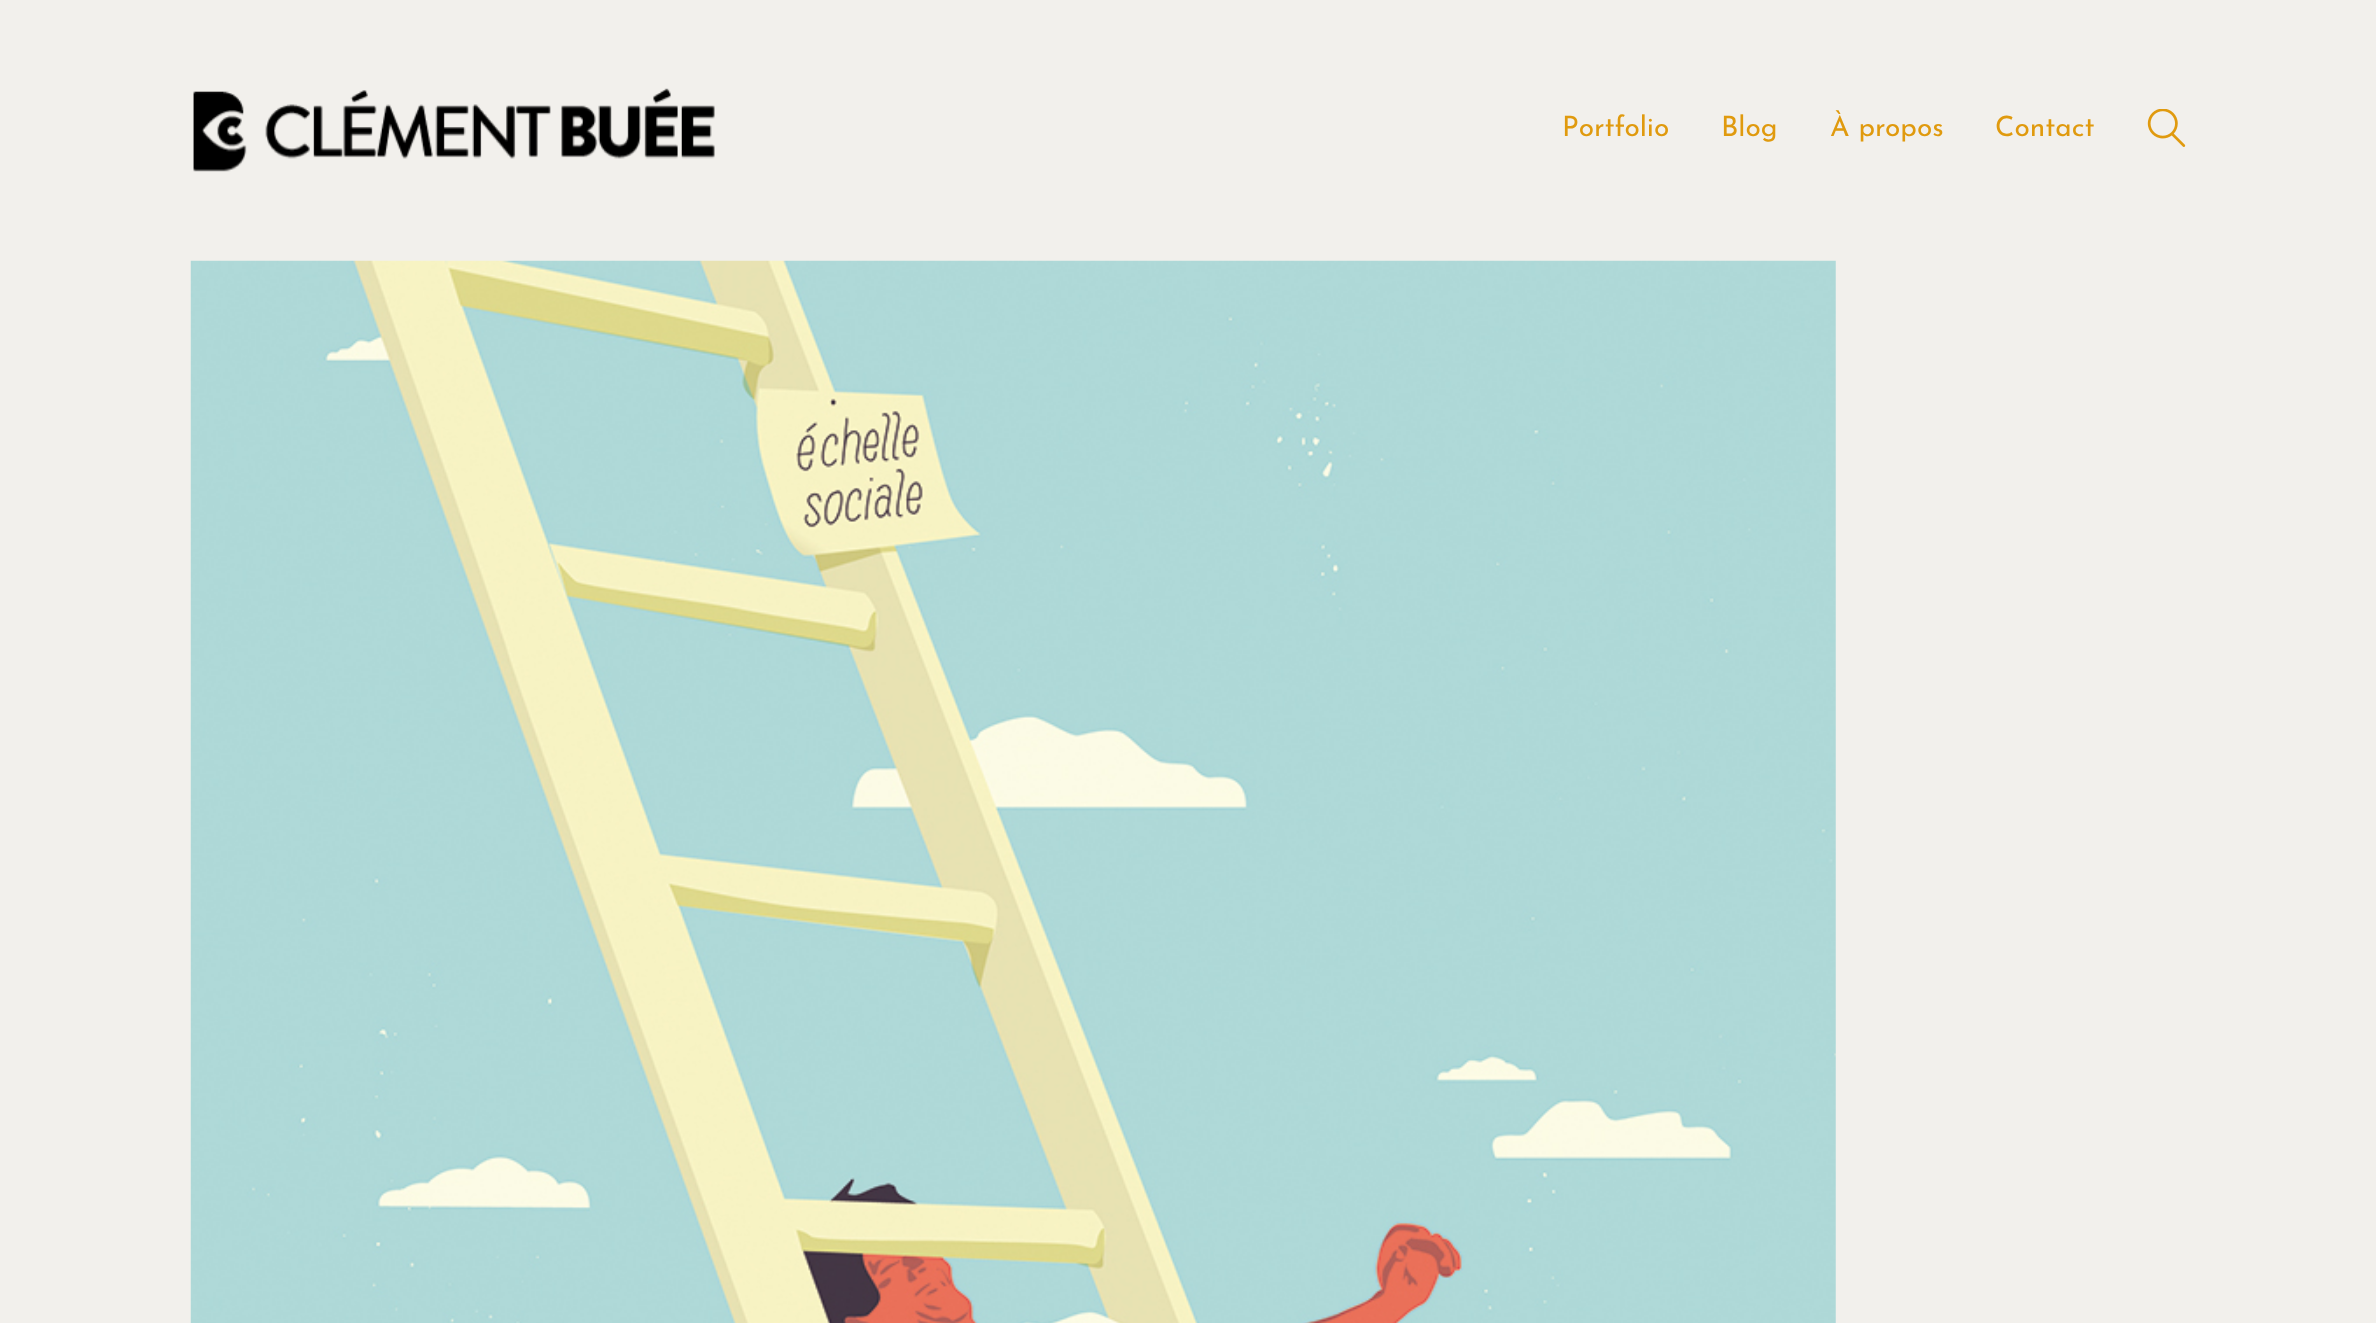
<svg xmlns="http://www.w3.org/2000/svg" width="2376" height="1323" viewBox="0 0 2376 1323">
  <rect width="100%" height="100%" fill="#f2f0ec"/>
  <image x="193" y="88" width="522" height="84" href="img/1.png"/>
  <image x="2147" y="109" width="39" height="38" href="img/2.png"/>
  <image x="190" y="260" width="1646" height="1063" href="img/3.png"/>
  <g font-family="Josefin Sans" font-size="28" font-weight="100" fill="#e09a0e">
    <text x="1562" y="136">Portfolio</text>
    <text x="1721" y="136">Blog</text>
    <text x="1830" y="136">À propos</text>
    <text x="1995" y="136">Contact</text>
  </g>
</svg>
